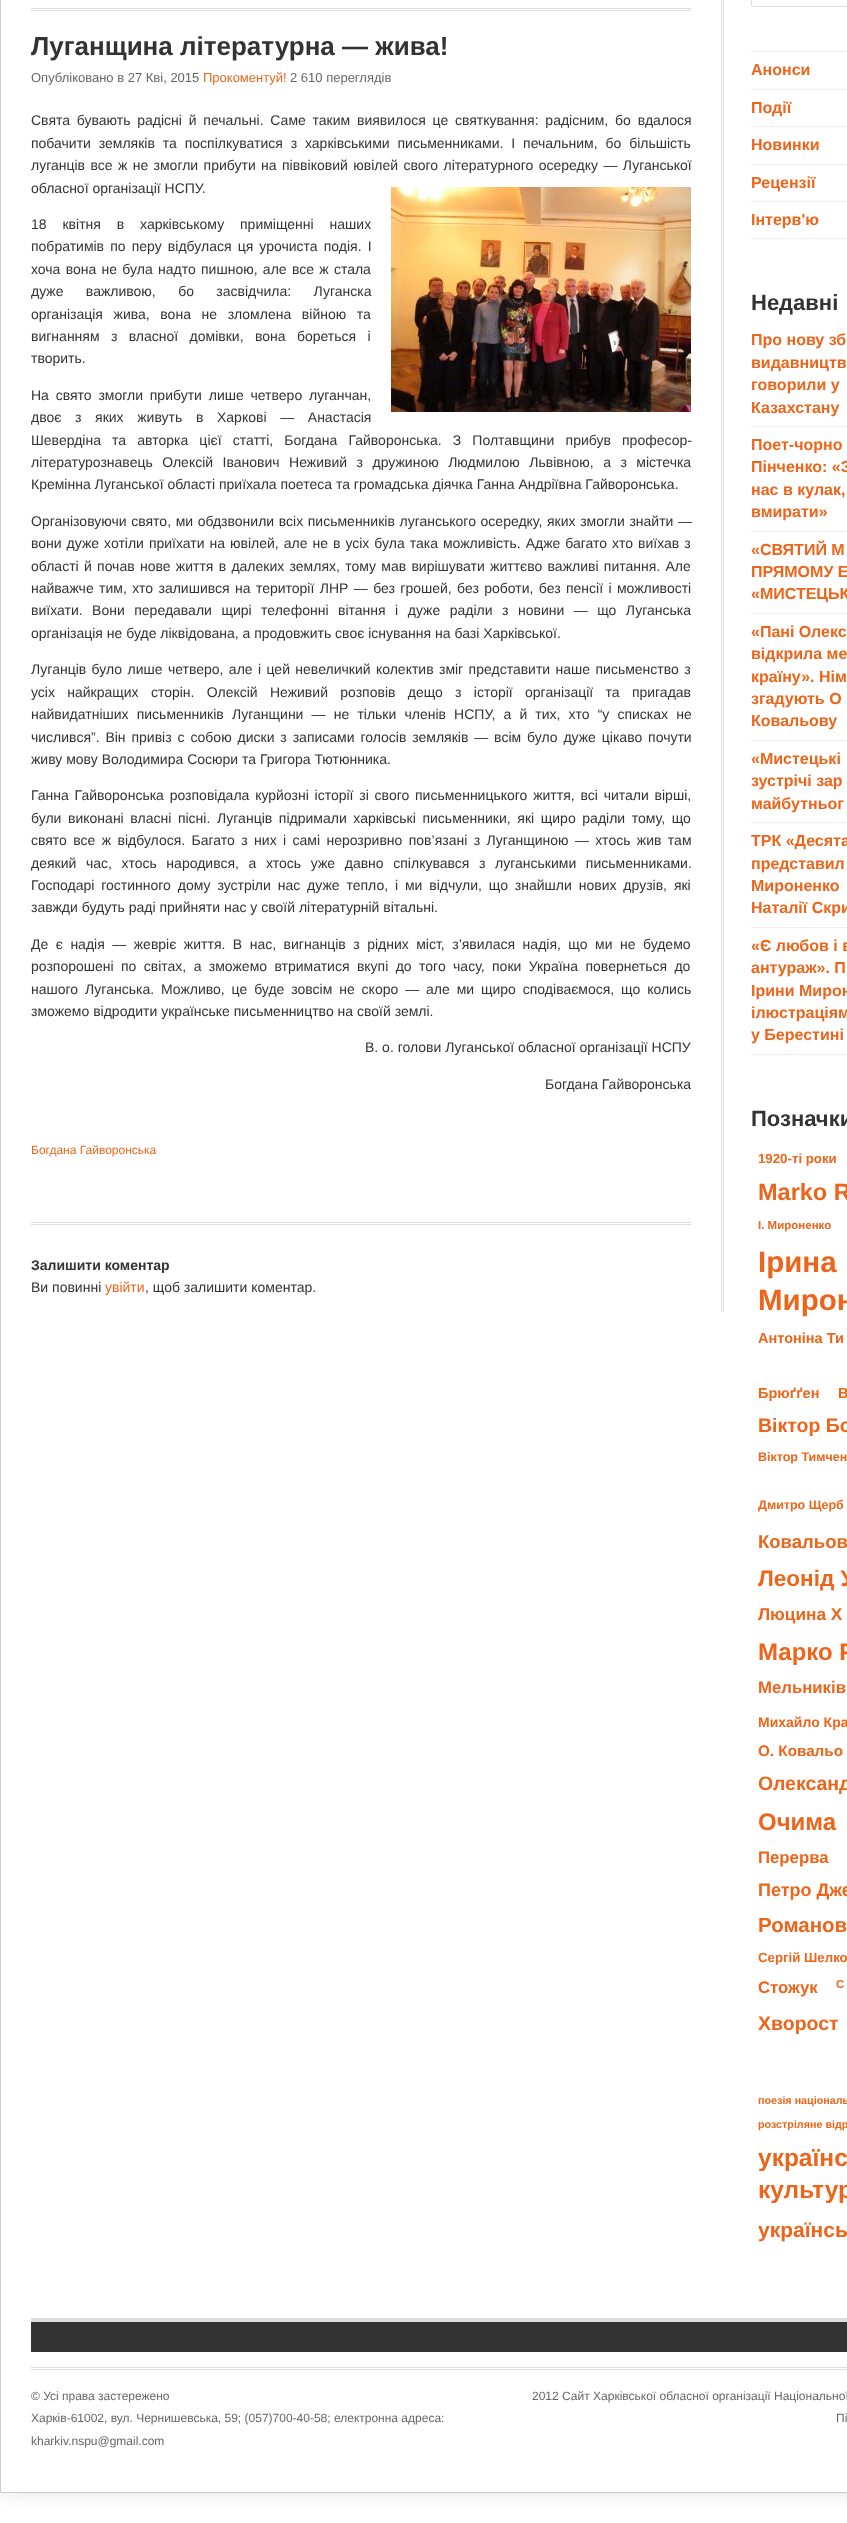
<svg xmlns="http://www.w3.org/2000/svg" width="847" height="2523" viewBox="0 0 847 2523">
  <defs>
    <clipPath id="clip1"><path d="M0 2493h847v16H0z"/></clipPath>
  </defs>
  <rect width="100%" height="100%" fill="#fff"/>
  <g clip-path="url(#clip1)">
    <path d="M0 -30h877v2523H0z" fill="#c0c0c066" filter="blur(10px)"/>
  </g>
  <path d="M0.5 -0.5h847v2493H0.5z" fill="none" stroke="#ccc"/>
  <path d="M721 0h1v1312H721z" fill="#ddd"/>
  <path d="M723 0h1v1312H723z" fill="#ddd"/>
  <path d="M31 8h660v1H31z" fill="#ddd"/>
  <path d="M31 10h660v1H31z" fill="#ddd"/>
  <image x="391" y="187" width="300" height="225" href="img/1.png"/>
  <path d="M31 1222h660v1H31z" fill="#ddd"/>
  <path d="M31 1224h660v1H31z" fill="#ddd"/>
  <rect x="751.5" y="-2.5" width="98" height="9" rx="1.5" fill="none" stroke="#ddd"/>
  <path d="M751 51h96v1H751z" fill="#eee"/>
  <path d="M751 89h96v1H751z" fill="#eee"/>
  <path d="M751 126h96v1H751z" fill="#eee"/>
  <path d="M751 164h96v1H751z" fill="#eee"/>
  <path d="M751 201h96v1H751z" fill="#eee"/>
  <path d="M751 238h96v1H751z" fill="#eee"/>
  <path d="M751 426h96v1H751z" fill="#eee"/>
  <path d="M751 531h96v1H751z" fill="#eee"/>
  <path d="M751 613h96v1H751z" fill="#eee"/>
  <path d="M751 740h96v1H751z" fill="#eee"/>
  <path d="M751 822h96v1H751z" fill="#eee"/>
  <path d="M751 927h96v1H751z" fill="#eee"/>
  <path d="M751 1054h96v1H751z" fill="#eee"/>
  <path d="M31 2322h816v30H31z" fill="#333"/>
  <path d="M31 2318h816v4H31z" fill="#ddd"/>
  <path d="M31 2367h816v1H31z" fill="#ddd"/>
  <path d="M31 2369h816v1H31z" fill="#ddd"/>
  <text x="31" y="55" font-family="Liberation Sans" font-size="26" font-weight="bold" fill="#333">Луганщина літературна — жива!</text>
  <text x="31" y="82" font-family="Liberation Sans" font-size="13" fill="#666">Опубліковано в 27 Кві, 2015</text>
  <text x="203" y="82" font-family="Liberation Sans" font-size="13" fill="#ec651b">Прокоментуй!</text>
  <text x="290" y="82" font-family="Liberation Sans" font-size="13" fill="#666">2 610 переглядів</text>
  <g font-family="Liberation Sans" font-size="14" fill="#333">
    <text x="31" y="125" word-spacing="2.9">Свята бувають радісні й печальні. Саме таким виявилося це святкування: радісним, бо вдалося</text>
    <text x="31" y="148" word-spacing="4">побачити земляків та поспілкуватися з харківськими письменниками. І печальним, бо більшість</text>
    <text x="31" y="170" word-spacing="1.5">луганців все ж не змогли прибути на піввіковий ювілей свого літературного осередку — Луганської</text>
    <text x="31" y="193">обласної організації НСПУ.</text>
    <text x="31" y="229" word-spacing="12">18 квітня в харківському приміщенні наших</text>
    <text x="31" y="251" word-spacing="2.25">побратимів по перу відбулася ця урочиста подія. І</text>
    <text x="31" y="274" word-spacing="1.4">хоча вона не була надто пишною, але все ж стала</text>
    <text x="31" y="296" word-spacing="18.5">дуже важливою, бо засвідчила: Луганска</text>
    <text x="31" y="319" word-spacing="6.75">організація жива, вона не зломлена війною та</text>
    <text x="31" y="341" word-spacing="7.5">вигнанням з власної домівки, вона бореться і</text>
    <text x="31" y="363">творить.</text>
    <text x="31" y="400" word-spacing="2.9">На свято змогли прибути лише четверо луганчан,</text>
    <text x="31" y="422" word-spacing="9.75">двоє з яких живуть в Харкові — Анастасія</text>
    <text x="31" y="445" word-spacing="7.25">Шевердіна та авторка цієї статті, Богдана Гайворонська. З Полтавщини прибув професор-</text>
    <text x="31" y="467" word-spacing="5.6">літературознавець Олексій Іванович Неживий з дружиною Людмилою Львівною, а з містечка</text>
    <text x="31" y="489">Кремінна Луганської області приїхала поетеса та громадська діячка Ганна Андріївна Гайворонська.</text>
    <text x="31" y="526" word-spacing="0.75">Організовуючи свято, ми обдзвонили всіх письменників луганського осередку, яких змогли знайти —</text>
    <text x="31" y="548" word-spacing="1.1">вони дуже хотіли приїхати на ювілей, але не в усіх була така можливість. Адже багато хто виїхав з</text>
    <text x="31" y="571" word-spacing="1.4">області й почав нове життя в далеких землях, тому мав вирішувати життєво важливі питання. Але</text>
    <text x="31" y="593" word-spacing="1.5">найважче тим, хто залишився на території ЛНР — без грошей, без роботи, без пенсії і можливості</text>
    <text x="31" y="615" word-spacing="5.6">виїхати. Вони передавали щирі телефонні вітання і дуже раділи з новини — що Луганська</text>
    <text x="31" y="638">організація не буде ліквідована, а продовжить своє існування на базі Харківської.</text>
    <text x="31" y="674" word-spacing="1.5">Луганців було лише четверо, але і цей невеличкий колектив зміг представити наше письменство з</text>
    <text x="31" y="697" word-spacing="8.4">усіх найкращих сторін. Олексій Неживий розповів дещо з історії організації та пригадав</text>
    <text x="31" y="719" word-spacing="4.25">найвидатніших письменників Луганщини — не тільки членів НСПУ, а й тих, хто “у списках не</text>
    <text x="31" y="742" word-spacing="2">числився”. Він привіз с собою диски з записами голосів земляків — всім було дуже цікаво почути</text>
    <text x="31" y="764">живу мову Володимира Сосюри та Григора Тютюнника.</text>
    <text x="31" y="800" word-spacing="1.9">Ганна Гайворонська розповідала курйозні історії зі свого письменницького життя, всі читали вірші,</text>
    <text x="31" y="823" word-spacing="2.75">були виконані власні пісні. Луганців підримали харківські письменники, які щиро раділи тому, що</text>
    <text x="31" y="845" word-spacing="2.5">свято все ж відбулося. Багато з них і самі нерозривно пов’язані з Луганщиною — хтось жив там</text>
    <text x="31" y="868" word-spacing="5.75">деякий час, хтось народився, а хтось уже давно спілкувався з луганськими письменниками.</text>
    <text x="31" y="890" word-spacing="3">Господарі гостинного дому зустріли нас дуже тепло, і ми відчули, що знайшли нових друзів, які</text>
    <text x="31" y="912">завжди будуть раді прийняти нас у своїй літературній вітальні.</text>
    <text x="31" y="949" word-spacing="3.6">Де є надія — жевріє життя. В нас, вигнанців з рідних міст, з’явилася надія, що ми не будемо</text>
    <text x="31" y="971" word-spacing="3.5">розпорошені по світах, а зможемо втриматися вкупі до того часу, поки Україна повернеться до</text>
    <text x="31" y="994" word-spacing="3">нашого Луганська. Можливо, це буде зовсім не скоро — але ми щиро сподіваємося, що колись</text>
    <text x="31" y="1016">зможемо відродити українське письменництво на своїй землі.</text>
    <text x="365" y="1052">В. о. голови Луганської обласної організації НСПУ</text>
    <text x="545" y="1089">Богдана Гайворонська</text>
  </g>
  <text x="31" y="1154" font-family="Liberation Sans" font-size="12" fill="#ec651b">Богдана Гайворонська</text>
  <text x="31" y="1270" font-family="Liberation Sans" font-size="14" font-weight="bold" fill="#333">Залишити коментар</text>
  <text x="31" y="1292" font-family="Liberation Sans" font-size="14" fill="#333">Ви повинні</text>
  <text x="105" y="1292" font-family="Liberation Sans" font-size="14" fill="#ec651b">увійти</text>
  <text x="145" y="1292" font-family="Liberation Sans" font-size="14" fill="#333">, щоб залишити коментар.</text>
  <g font-family="Liberation Sans" font-size="16" font-weight="bold" fill="#ec651b">
    <text x="751" y="75">Анонси</text>
    <text x="751" y="113">Події</text>
    <text x="751" y="150">Новинки</text>
    <text x="751" y="188">Рецензії</text>
    <text x="751" y="225">Інтерв'ю</text>
  </g>
  <text x="751" y="310" font-family="Liberation Sans" font-size="22" font-weight="bold" fill="#333">Недавні</text>
  <g font-family="Liberation Sans" font-size="16" font-weight="bold" fill="#ec651b">
    <text x="751" y="345">Про нову зб</text>
    <text x="751" y="368">видавництв</text>
    <text x="751" y="390">говорили у</text>
    <text x="751" y="413">Казахстану</text>
    <text x="751" y="450">Поет-чорно</text>
    <text x="751" y="472">Пінченко: «З</text>
    <text x="751" y="495">нас в кулак,</text>
    <text x="751" y="517">вмирати»</text>
    <text x="751" y="555">«СВЯТИЙ М</text>
    <text x="751" y="577">ПРЯМОМУ Е</text>
    <text x="751" y="599">«МИСТЕЦЬК</text>
    <text x="751" y="637">«Пані Олекс</text>
    <text x="751" y="659">відкрила ме</text>
    <text x="751" y="682">країну». Нім</text>
    <text x="751" y="704">згадують О</text>
    <text x="751" y="726">Ковальову</text>
    <text x="751" y="764">«Мистецькі</text>
    <text x="751" y="786">зустрічі зар</text>
    <text x="751" y="809">майбутньог</text>
    <text x="751" y="846">ТРК «Десята</text>
    <text x="751" y="869">представил</text>
    <text x="751" y="891">Мироненко</text>
    <text x="751" y="913">Наталії Скри</text>
    <text x="751" y="951">«Є любов і в</text>
    <text x="751" y="973">антураж». П</text>
    <text x="751" y="996">Ірини Мирон</text>
    <text x="751" y="1018">ілюстраціям</text>
    <text x="751" y="1040">у Берестині</text>
  </g>
  <text x="751" y="1126" font-family="Liberation Sans" font-size="22" font-weight="bold" fill="#333">Позначки</text>
  <text x="758" y="1163" font-family="Liberation Sans" font-size="13.25" font-weight="bold" fill="#ec651b">1920-ті роки</text>
  <text x="758" y="1200" font-family="Liberation Sans" font-size="23.5" font-weight="bold" fill="#ec651b">Marko R</text>
  <text x="758" y="1229" font-family="Liberation Sans" font-size="11.5" font-weight="bold" fill="#ec651b">І. Мироненко</text>
  <g font-family="Liberation Sans" font-size="29.5" font-weight="bold" fill="#ec651b">
    <text x="758" y="1272">Ірина</text>
    <text x="758" y="1310">Мирон</text>
  </g>
  <g font-family="Liberation Sans" font-size="14.5" font-weight="bold" fill="#ec651b">
    <text x="758" y="1343">Антоніна Ти</text>
    <text x="758" y="1398">Брюґґен</text>
    <text x="838" y="1398">В</text>
  </g>
  <text x="758" y="1432" font-family="Liberation Sans" font-size="19.5" font-weight="bold" fill="#ec651b">Віктор Бо</text>
  <g font-family="Liberation Sans" font-size="12.5" font-weight="bold" fill="#ec651b">
    <text x="758" y="1461">Віктор Тимчен</text>
    <text x="758" y="1509">Дмитро Щерб</text>
  </g>
  <text x="758" y="1548" font-family="Liberation Sans" font-size="18.5" font-weight="bold" fill="#ec651b">Ковальов</text>
  <text x="758" y="1586" font-family="Liberation Sans" font-size="22.5" font-weight="bold" fill="#ec651b">Леонід У</text>
  <text x="758" y="1620" font-family="Liberation Sans" font-size="17.25" font-weight="bold" fill="#ec651b">Люцина Х</text>
  <text x="758" y="1660" font-family="Liberation Sans" font-size="24" font-weight="bold" fill="#ec651b">Марко Р</text>
  <text x="758" y="1693" font-family="Liberation Sans" font-size="16.75" font-weight="bold" fill="#ec651b">Мельників</text>
  <text x="758" y="1727" font-family="Liberation Sans" font-size="14" font-weight="bold" fill="#ec651b">Михайло Кра</text>
  <text x="758" y="1756" font-family="Liberation Sans" font-size="15.25" font-weight="bold" fill="#ec651b">О. Ковальо</text>
  <text x="758" y="1790" font-family="Liberation Sans" font-size="19.5" font-weight="bold" fill="#ec651b">Олександ</text>
  <text x="758" y="1830" font-family="Liberation Sans" font-size="24" font-weight="bold" fill="#ec651b">Очима</text>
  <text x="758" y="1863" font-family="Liberation Sans" font-size="16.75" font-weight="bold" fill="#ec651b">Перерва</text>
  <text x="758" y="1896" font-family="Liberation Sans" font-size="18" font-weight="bold" fill="#ec651b">Петро Дже</text>
  <text x="758" y="1932" font-family="Liberation Sans" font-size="20.5" font-weight="bold" fill="#ec651b">Романов</text>
  <text x="758" y="1962" font-family="Liberation Sans" font-size="13.25" font-weight="bold" fill="#ec651b">Сергій Шелко</text>
  <text x="758" y="1993" font-family="Liberation Sans" font-size="16.75" font-weight="bold" fill="#ec651b">Стожук</text>
  <text x="836" y="1988" font-family="Liberation Sans" font-size="11.5" font-weight="bold" fill="#ec651b">С</text>
  <text x="758" y="2030" font-family="Liberation Sans" font-size="19.5" font-weight="bold" fill="#ec651b">Хворост</text>
  <g font-family="Liberation Sans" font-size="10.75" font-weight="bold" fill="#ec651b">
    <text x="758" y="2104">поезія національ</text>
    <text x="758" y="2128">розстріляне відр</text>
  </g>
  <g font-family="Liberation Sans" font-size="24.5" font-weight="bold" fill="#ec651b">
    <text x="758" y="2166">українс</text>
    <text x="758" y="2198">культур</text>
  </g>
  <text x="758" y="2237" font-family="Liberation Sans" font-size="21" font-weight="bold" fill="#ec651b">українсь</text>
  <g font-family="Liberation Sans" font-size="12" fill="#666">
    <text x="31" y="2400">© Усі права застережено</text>
    <text x="31" y="2422">Харків-61002, вул. Чернишевська, 59; (057)700-40-58; електронна адреса:</text>
    <text x="31" y="2445">kharkiv.nspu@gmail.com</text>
    <text x="532" y="2400">2012 Сайт Харківської обласної організації Національної</text>
    <text x="836" y="2422">Пі</text>
  </g>
</svg>
